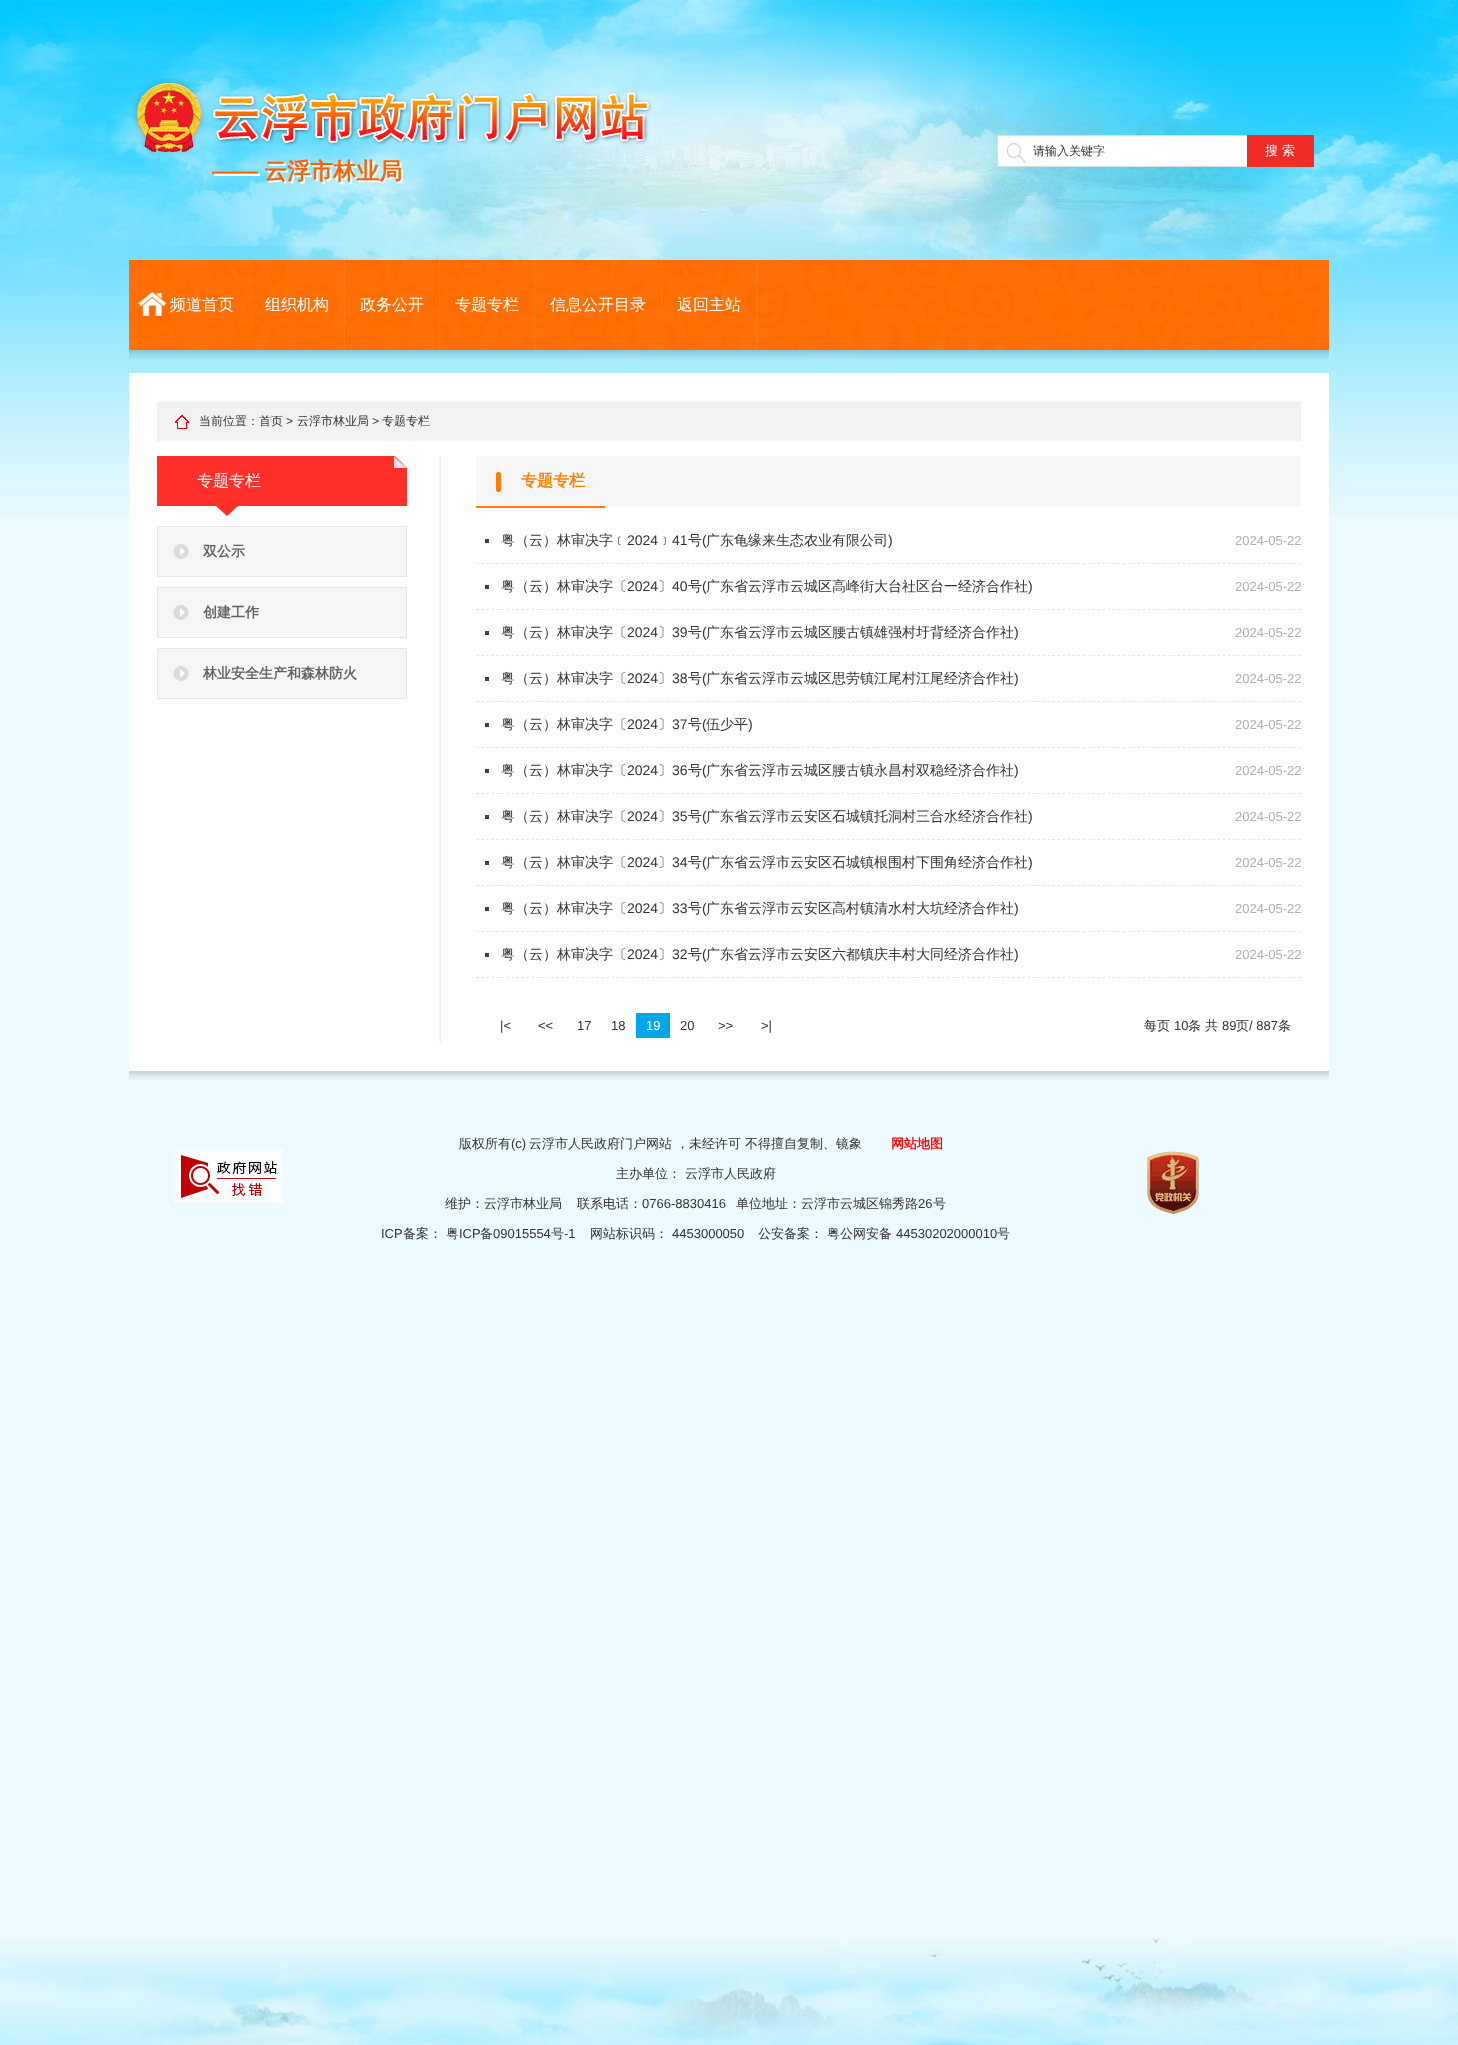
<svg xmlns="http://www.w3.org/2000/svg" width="1458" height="2045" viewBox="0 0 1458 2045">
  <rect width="100%" height="100%" fill="#edfaff"/>
  <image x="0" y="0" width="1458" height="518" href="img/1.png"/>
  <path d="M998 136h249v30H998z" fill="#fff"/>
  <image x="1006" y="142" width="20" height="21" href="img/2.png"/>
  <path d="M997 135h252v1H997z" fill="#ddd"/>
  <path d="M997 166h252v1H997z" fill="#ddd"/>
  <path d="M997 135h1v32H997z" fill="#ddd"/>
  <path d="M1247 135h67v32H1247z" fill="#f02c27"/>
  <image x="132" y="78" width="520" height="78" href="img/3.png"/>
  <image x="129" y="260" width="1200" height="90" href="img/4.png"/>
  <image x="138" y="292" width="28" height="24" href="img/5.png"/>
  <path d="M249 260h1v90H249z" fill="#ff7d1d"/>
  <path d="M344 260h1v90H344z" fill="#ff7d1d"/>
  <path d="M439 260h1v90H439z" fill="#ff7d1d"/>
  <path d="M534 260h1v90H534z" fill="#ff7d1d"/>
  <path d="M661 260h1v90H661z" fill="#ff7d1d"/>
  <path d="M756 260h1v90H756z" fill="#ff7d1d"/>
  <image x="129" y="350" width="1200" height="9" href="img/6.png"/>
  <path d="M129 373h1200v698H129z" fill="#fff"/>
  <path d="M157 401h1144v40H157z" fill="#f3f2f2"/>
  <image x="175" y="415" width="14" height="14" href="img/7.png"/>
  <image x="439" y="456" width="2" height="587" href="img/8.png"/>
  <image x="157" y="456" width="250" height="60" href="img/9.png"/>
  <path d="M158 527h248v49H158z" fill="#f6f6f6"/>
  <image x="173" y="544" width="16" height="15" href="img/10.png"/>
  <path d="M157.5 526.5h249v50H157.5z" fill="none" stroke="#e6e6e6"/>
  <path d="M158 588h248v49H158z" fill="#f6f6f6"/>
  <image x="173" y="605" width="16" height="15" href="img/10.png"/>
  <path d="M157.5 587.5h249v50H157.5z" fill="none" stroke="#e6e6e6"/>
  <path d="M158 649h248v49H158z" fill="#f6f6f6"/>
  <image x="173" y="666" width="16" height="15" href="img/10.png"/>
  <path d="M157.5 648.5h249v50H157.5z" fill="none" stroke="#e6e6e6"/>
  <path d="M476 456h825v50H476z" fill="#f6f6f6"/>
  <path d="M476 506h129v2H476z" fill="#ff8200"/>
  <image x="496" y="472" width="5" height="20" href="img/11.png"/>
  <path d="M476 563.5H1301" fill="none" stroke="#e6e6e6" stroke-dasharray="3 2.01"/>
  <path d="M485 539h4v4H485z" fill="#3e3e3e"/>
  <path d="M476 609.5H1301" fill="none" stroke="#e6e6e6" stroke-dasharray="3 2.01"/>
  <path d="M485 585h4v4H485z" fill="#3e3e3e"/>
  <path d="M476 655.5H1301" fill="none" stroke="#e6e6e6" stroke-dasharray="3 2.01"/>
  <path d="M485 631h4v4H485z" fill="#3e3e3e"/>
  <path d="M476 701.5H1301" fill="none" stroke="#e6e6e6" stroke-dasharray="3 2.01"/>
  <path d="M485 677h4v4H485z" fill="#3e3e3e"/>
  <path d="M476 747.5H1301" fill="none" stroke="#e6e6e6" stroke-dasharray="3 2.01"/>
  <path d="M485 723h4v4H485z" fill="#3e3e3e"/>
  <path d="M476 793.5H1301" fill="none" stroke="#e6e6e6" stroke-dasharray="3 2.01"/>
  <path d="M485 769h4v4H485z" fill="#3e3e3e"/>
  <path d="M476 839.5H1301" fill="none" stroke="#e6e6e6" stroke-dasharray="3 2.01"/>
  <path d="M485 815h4v4H485z" fill="#3e3e3e"/>
  <path d="M476 885.5H1301" fill="none" stroke="#e6e6e6" stroke-dasharray="3 2.01"/>
  <path d="M485 861h4v4H485z" fill="#3e3e3e"/>
  <path d="M476 931.5H1301" fill="none" stroke="#e6e6e6" stroke-dasharray="3 2.01"/>
  <path d="M485 907h4v4H485z" fill="#3e3e3e"/>
  <path d="M476 977.5H1301" fill="none" stroke="#e6e6e6" stroke-dasharray="3 2.01"/>
  <path d="M485 953h4v4H485z" fill="#3e3e3e"/>
  <path d="M636 1013h34v25H636z" fill="#00a6e7"/>
  <image x="129" y="1071" width="1200" height="9" href="img/12.png"/>
  <image x="174" y="1149" width="110" height="55" href="img/13.png"/>
  <image x="1147" y="1151" width="52" height="64" href="img/14.png"/>
  <image x="0" y="1938" width="1458" height="107" href="img/15.png"/>
  <text x="1033" y="155" font-family="WenQuanYi Zen Hei" font-size="12" font-weight="500" fill="#323232">请输入关键字</text>
  <text x="1265" y="155" font-family="WenQuanYi Zen Hei" font-size="13" font-weight="500" fill="#fff">搜 索</text>
  <text x="212" y="179" font-family="Liberation Sans" font-size="23" font-weight="bold" fill="#ff6000">——</text>
  <text x="214" y="181" font-family="Liberation Sans" font-size="23" font-weight="bold" fill="#fff">——</text>
  <text x="266" y="181" font-family="WenQuanYi Zen Hei" font-size="23" font-weight="bold" fill="#fff">云浮市林业局</text>
  <text x="264" y="179" font-family="WenQuanYi Zen Hei" font-size="23" font-weight="bold" fill="#ff6000">云浮市林业局</text>
  <g font-family="WenQuanYi Zen Hei" font-size="16" font-weight="500" fill="#fff">
    <text x="170" y="310">频道首页</text>
    <text x="265" y="310">组织机构</text>
    <text x="360" y="310">政务公开</text>
    <text x="455" y="310">专题专栏</text>
    <text x="550" y="310">信息公开目录</text>
    <text x="677" y="310">返回主站</text>
  </g>
  <text x="199" y="425" font-family="WenQuanYi Zen Hei" font-size="12" font-weight="500" fill="#323232">当前位置：首页</text>
  <text x="286" y="425" font-family="Liberation Sans" font-size="12" fill="#323232">&gt;</text>
  <text x="297" y="425" font-family="WenQuanYi Zen Hei" font-size="12" font-weight="500" fill="#323232">云浮市林业局</text>
  <text x="372" y="425" font-family="Liberation Sans" font-size="12" fill="#323232">&gt;</text>
  <text x="382" y="425" font-family="WenQuanYi Zen Hei" font-size="12" font-weight="500" fill="#323232">专题专栏</text>
  <text x="197" y="486" font-family="WenQuanYi Zen Hei" font-size="16" font-weight="500" fill="#fff">专题专栏</text>
  <g font-family="WenQuanYi Zen Hei" font-size="14" font-weight="bold" fill="#616161">
    <text x="203" y="556">双公示</text>
    <text x="203" y="617">创建工作</text>
    <text x="203" y="678">林业安全生产和森林防火</text>
  </g>
  <text x="521" y="486" font-family="WenQuanYi Zen Hei" font-size="16" font-weight="bold" fill="#ff8200">专题专栏</text>
  <text x="501" y="545" font-family="WenQuanYi Zen Hei" font-size="14" font-weight="500" fill="#323232">粤（云）林审决字﹝</text>
  <text x="627" y="545" font-family="Liberation Sans" font-size="14" fill="#323232">2024</text>
  <text x="658" y="545" font-family="WenQuanYi Zen Hei" font-size="14" font-weight="500" fill="#323232">﹞</text>
  <text x="672" y="545" font-family="Liberation Sans" font-size="14" fill="#323232">41</text>
  <text x="688" y="545" font-family="WenQuanYi Zen Hei" font-size="14" font-weight="500" fill="#323232">号</text>
  <text x="702" y="545" font-family="Liberation Sans" font-size="14" fill="#323232">(</text>
  <text x="706" y="545" font-family="WenQuanYi Zen Hei" font-size="14" font-weight="500" fill="#323232">广东龟缘来生态农业有限公司</text>
  <text x="888" y="545" font-family="Liberation Sans" font-size="14" fill="#323232">)</text>
  <text x="1235" y="545" font-family="Liberation Sans" font-size="13" fill="#b0b0b0">2024-05-22</text>
  <text x="501" y="591" font-family="WenQuanYi Zen Hei" font-size="14" font-weight="500" fill="#323232">粤（云）林审决字〔</text>
  <text x="627" y="591" font-family="Liberation Sans" font-size="14" fill="#323232">2024</text>
  <text x="658" y="591" font-family="WenQuanYi Zen Hei" font-size="14" font-weight="500" fill="#323232">〕</text>
  <text x="672" y="591" font-family="Liberation Sans" font-size="14" fill="#323232">40</text>
  <text x="688" y="591" font-family="WenQuanYi Zen Hei" font-size="14" font-weight="500" fill="#323232">号</text>
  <text x="702" y="591" font-family="Liberation Sans" font-size="14" fill="#323232">(</text>
  <text x="706" y="591" font-family="WenQuanYi Zen Hei" font-size="14" font-weight="500" fill="#323232">广东省云浮市云城区高峰街大台社区台一经济合作社</text>
  <text x="1028" y="591" font-family="Liberation Sans" font-size="14" fill="#323232">)</text>
  <text x="1235" y="591" font-family="Liberation Sans" font-size="13" fill="#b0b0b0">2024-05-22</text>
  <text x="501" y="637" font-family="WenQuanYi Zen Hei" font-size="14" font-weight="500" fill="#323232">粤（云）林审决字〔</text>
  <text x="627" y="637" font-family="Liberation Sans" font-size="14" fill="#323232">2024</text>
  <text x="658" y="637" font-family="WenQuanYi Zen Hei" font-size="14" font-weight="500" fill="#323232">〕</text>
  <text x="672" y="637" font-family="Liberation Sans" font-size="14" fill="#323232">39</text>
  <text x="688" y="637" font-family="WenQuanYi Zen Hei" font-size="14" font-weight="500" fill="#323232">号</text>
  <text x="702" y="637" font-family="Liberation Sans" font-size="14" fill="#323232">(</text>
  <text x="706" y="637" font-family="WenQuanYi Zen Hei" font-size="14" font-weight="500" fill="#323232">广东省云浮市云城区腰古镇雄强村圩背经济合作社</text>
  <text x="1014" y="637" font-family="Liberation Sans" font-size="14" fill="#323232">)</text>
  <text x="1235" y="637" font-family="Liberation Sans" font-size="13" fill="#b0b0b0">2024-05-22</text>
  <text x="501" y="683" font-family="WenQuanYi Zen Hei" font-size="14" font-weight="500" fill="#323232">粤（云）林审决字〔</text>
  <text x="627" y="683" font-family="Liberation Sans" font-size="14" fill="#323232">2024</text>
  <text x="658" y="683" font-family="WenQuanYi Zen Hei" font-size="14" font-weight="500" fill="#323232">〕</text>
  <text x="672" y="683" font-family="Liberation Sans" font-size="14" fill="#323232">38</text>
  <text x="688" y="683" font-family="WenQuanYi Zen Hei" font-size="14" font-weight="500" fill="#323232">号</text>
  <text x="702" y="683" font-family="Liberation Sans" font-size="14" fill="#323232">(</text>
  <text x="706" y="683" font-family="WenQuanYi Zen Hei" font-size="14" font-weight="500" fill="#323232">广东省云浮市云城区思劳镇江尾村江尾经济合作社</text>
  <text x="1014" y="683" font-family="Liberation Sans" font-size="14" fill="#323232">)</text>
  <text x="1235" y="683" font-family="Liberation Sans" font-size="13" fill="#b0b0b0">2024-05-22</text>
  <text x="501" y="729" font-family="WenQuanYi Zen Hei" font-size="14" font-weight="500" fill="#323232">粤（云）林审决字〔</text>
  <text x="627" y="729" font-family="Liberation Sans" font-size="14" fill="#323232">2024</text>
  <text x="658" y="729" font-family="WenQuanYi Zen Hei" font-size="14" font-weight="500" fill="#323232">〕</text>
  <text x="672" y="729" font-family="Liberation Sans" font-size="14" fill="#323232">37</text>
  <text x="688" y="729" font-family="WenQuanYi Zen Hei" font-size="14" font-weight="500" fill="#323232">号</text>
  <text x="702" y="729" font-family="Liberation Sans" font-size="14" fill="#323232">(</text>
  <text x="706" y="729" font-family="WenQuanYi Zen Hei" font-size="14" font-weight="500" fill="#323232">伍少平</text>
  <text x="748" y="729" font-family="Liberation Sans" font-size="14" fill="#323232">)</text>
  <text x="1235" y="729" font-family="Liberation Sans" font-size="13" fill="#b0b0b0">2024-05-22</text>
  <text x="501" y="775" font-family="WenQuanYi Zen Hei" font-size="14" font-weight="500" fill="#323232">粤（云）林审决字〔</text>
  <text x="627" y="775" font-family="Liberation Sans" font-size="14" fill="#323232">2024</text>
  <text x="658" y="775" font-family="WenQuanYi Zen Hei" font-size="14" font-weight="500" fill="#323232">〕</text>
  <text x="672" y="775" font-family="Liberation Sans" font-size="14" fill="#323232">36</text>
  <text x="688" y="775" font-family="WenQuanYi Zen Hei" font-size="14" font-weight="500" fill="#323232">号</text>
  <text x="702" y="775" font-family="Liberation Sans" font-size="14" fill="#323232">(</text>
  <text x="706" y="775" font-family="WenQuanYi Zen Hei" font-size="14" font-weight="500" fill="#323232">广东省云浮市云城区腰古镇永昌村双稳经济合作社</text>
  <text x="1014" y="775" font-family="Liberation Sans" font-size="14" fill="#323232">)</text>
  <text x="1235" y="775" font-family="Liberation Sans" font-size="13" fill="#b0b0b0">2024-05-22</text>
  <text x="501" y="821" font-family="WenQuanYi Zen Hei" font-size="14" font-weight="500" fill="#323232">粤（云）林审决字〔</text>
  <text x="627" y="821" font-family="Liberation Sans" font-size="14" fill="#323232">2024</text>
  <text x="658" y="821" font-family="WenQuanYi Zen Hei" font-size="14" font-weight="500" fill="#323232">〕</text>
  <text x="672" y="821" font-family="Liberation Sans" font-size="14" fill="#323232">35</text>
  <text x="688" y="821" font-family="WenQuanYi Zen Hei" font-size="14" font-weight="500" fill="#323232">号</text>
  <text x="702" y="821" font-family="Liberation Sans" font-size="14" fill="#323232">(</text>
  <text x="706" y="821" font-family="WenQuanYi Zen Hei" font-size="14" font-weight="500" fill="#323232">广东省云浮市云安区石城镇托洞村三合水经济合作社</text>
  <text x="1028" y="821" font-family="Liberation Sans" font-size="14" fill="#323232">)</text>
  <text x="1235" y="821" font-family="Liberation Sans" font-size="13" fill="#b0b0b0">2024-05-22</text>
  <text x="501" y="867" font-family="WenQuanYi Zen Hei" font-size="14" font-weight="500" fill="#323232">粤（云）林审决字〔</text>
  <text x="627" y="867" font-family="Liberation Sans" font-size="14" fill="#323232">2024</text>
  <text x="658" y="867" font-family="WenQuanYi Zen Hei" font-size="14" font-weight="500" fill="#323232">〕</text>
  <text x="672" y="867" font-family="Liberation Sans" font-size="14" fill="#323232">34</text>
  <text x="688" y="867" font-family="WenQuanYi Zen Hei" font-size="14" font-weight="500" fill="#323232">号</text>
  <text x="702" y="867" font-family="Liberation Sans" font-size="14" fill="#323232">(</text>
  <text x="706" y="867" font-family="WenQuanYi Zen Hei" font-size="14" font-weight="500" fill="#323232">广东省云浮市云安区石城镇根围村下围角经济合作社</text>
  <text x="1028" y="867" font-family="Liberation Sans" font-size="14" fill="#323232">)</text>
  <text x="1235" y="867" font-family="Liberation Sans" font-size="13" fill="#b0b0b0">2024-05-22</text>
  <text x="501" y="913" font-family="WenQuanYi Zen Hei" font-size="14" font-weight="500" fill="#323232">粤（云）林审决字〔</text>
  <text x="627" y="913" font-family="Liberation Sans" font-size="14" fill="#323232">2024</text>
  <text x="658" y="913" font-family="WenQuanYi Zen Hei" font-size="14" font-weight="500" fill="#323232">〕</text>
  <text x="672" y="913" font-family="Liberation Sans" font-size="14" fill="#323232">33</text>
  <text x="688" y="913" font-family="WenQuanYi Zen Hei" font-size="14" font-weight="500" fill="#323232">号</text>
  <text x="702" y="913" font-family="Liberation Sans" font-size="14" fill="#323232">(</text>
  <text x="706" y="913" font-family="WenQuanYi Zen Hei" font-size="14" font-weight="500" fill="#323232">广东省云浮市云安区高村镇清水村大坑经济合作社</text>
  <text x="1014" y="913" font-family="Liberation Sans" font-size="14" fill="#323232">)</text>
  <text x="1235" y="913" font-family="Liberation Sans" font-size="13" fill="#b0b0b0">2024-05-22</text>
  <text x="501" y="959" font-family="WenQuanYi Zen Hei" font-size="14" font-weight="500" fill="#323232">粤（云）林审决字〔</text>
  <text x="627" y="959" font-family="Liberation Sans" font-size="14" fill="#323232">2024</text>
  <text x="658" y="959" font-family="WenQuanYi Zen Hei" font-size="14" font-weight="500" fill="#323232">〕</text>
  <text x="672" y="959" font-family="Liberation Sans" font-size="14" fill="#323232">32</text>
  <text x="688" y="959" font-family="WenQuanYi Zen Hei" font-size="14" font-weight="500" fill="#323232">号</text>
  <text x="702" y="959" font-family="Liberation Sans" font-size="14" fill="#323232">(</text>
  <text x="706" y="959" font-family="WenQuanYi Zen Hei" font-size="14" font-weight="500" fill="#323232">广东省云浮市云安区六都镇庆丰村大同经济合作社</text>
  <text x="1014" y="959" font-family="Liberation Sans" font-size="14" fill="#323232">)</text>
  <text x="1235" y="959" font-family="Liberation Sans" font-size="13" fill="#b0b0b0">2024-05-22</text>
  <g font-family="Liberation Sans" font-size="13" fill="#323232">
    <text x="500" y="1030">|&lt;</text>
    <text x="538" y="1030">&lt;&lt;</text>
    <text x="577" y="1030">17</text>
    <text x="611" y="1030">18</text>
  </g>
  <text x="646" y="1030" font-family="Liberation Sans" font-size="13" fill="#fff">19</text>
  <g font-family="Liberation Sans" font-size="13" fill="#323232">
    <text x="680" y="1030">20</text>
    <text x="718" y="1030">&gt;&gt;</text>
    <text x="761" y="1030">&gt;|</text>
  </g>
  <text x="1144" y="1030" font-family="WenQuanYi Zen Hei" font-size="13" font-weight="500" fill="#323232">每页</text>
  <text x="1174" y="1030" font-family="Liberation Sans" font-size="13" fill="#323232">10</text>
  <text x="1188" y="1030" font-family="WenQuanYi Zen Hei" font-size="13" font-weight="500" fill="#323232">条 共</text>
  <text x="1222" y="1030" font-family="Liberation Sans" font-size="13" fill="#323232">89</text>
  <text x="1236" y="1030" font-family="WenQuanYi Zen Hei" font-size="13" font-weight="500" fill="#323232">页</text>
  <text x="1249" y="1030" font-family="Liberation Sans" font-size="13" fill="#323232">/ 887</text>
  <g font-family="WenQuanYi Zen Hei" font-size="13" font-weight="500" fill="#323232">
    <text x="1278" y="1030">条</text>
    <text x="459" y="1148">版权所有</text>
  </g>
  <text x="511" y="1148" font-family="Liberation Sans" font-size="13" fill="#323232">(c)</text>
  <g font-family="WenQuanYi Zen Hei" font-size="13" font-weight="500" fill="#323232">
    <text x="529" y="1148">云浮市人民政府门户网站</text>
    <text x="676" y="1148">，未经许可 不得擅自复制、镜象</text>
  </g>
  <text x="891" y="1148" font-family="WenQuanYi Zen Hei" font-size="13" font-weight="bold" fill="#f00">网站地图</text>
  <g font-family="WenQuanYi Zen Hei" font-size="13" font-weight="500" fill="#323232">
    <text x="616" y="1178">主办单位： 云浮市人民政府</text>
    <text x="445" y="1208">维护：云浮市林业局</text>
    <text x="577" y="1208">联系电话：</text>
  </g>
  <text x="642" y="1208" font-family="Liberation Sans" font-size="13" fill="#323232">0766-8830416</text>
  <text x="736" y="1208" font-family="WenQuanYi Zen Hei" font-size="13" font-weight="500" fill="#323232">单位地址：云浮市云城区锦秀路</text>
  <text x="918" y="1208" font-family="Liberation Sans" font-size="13" fill="#323232">26</text>
  <text x="933" y="1208" font-family="WenQuanYi Zen Hei" font-size="13" font-weight="500" fill="#323232">号</text>
  <text x="381" y="1238" font-family="Liberation Sans" font-size="13" fill="#323232">ICP</text>
  <text x="403" y="1238" font-family="WenQuanYi Zen Hei" font-size="13" font-weight="500" fill="#323232">备案： 粤</text>
  <text x="459" y="1238" font-family="Liberation Sans" font-size="13" fill="#323232">ICP</text>
  <text x="480" y="1238" font-family="WenQuanYi Zen Hei" font-size="13" font-weight="500" fill="#323232">备</text>
  <text x="493" y="1238" font-family="Liberation Sans" font-size="13" fill="#323232">09015554</text>
  <text x="551" y="1238" font-family="WenQuanYi Zen Hei" font-size="13" font-weight="500" fill="#323232">号</text>
  <text x="564" y="1238" font-family="Liberation Sans" font-size="13" fill="#323232">-1</text>
  <text x="590" y="1238" font-family="WenQuanYi Zen Hei" font-size="13" font-weight="500" fill="#323232">网站标识码：</text>
  <text x="672" y="1238" font-family="Liberation Sans" font-size="13" fill="#323232">4453000050</text>
  <text x="758" y="1238" font-family="WenQuanYi Zen Hei" font-size="13" font-weight="500" fill="#323232">公安备案： 粤公网安备</text>
  <text x="896" y="1238" font-family="Liberation Sans" font-size="13" fill="#323232">44530202000010</text>
  <text x="997" y="1238" font-family="WenQuanYi Zen Hei" font-size="13" font-weight="500" fill="#323232">号</text>
</svg>
